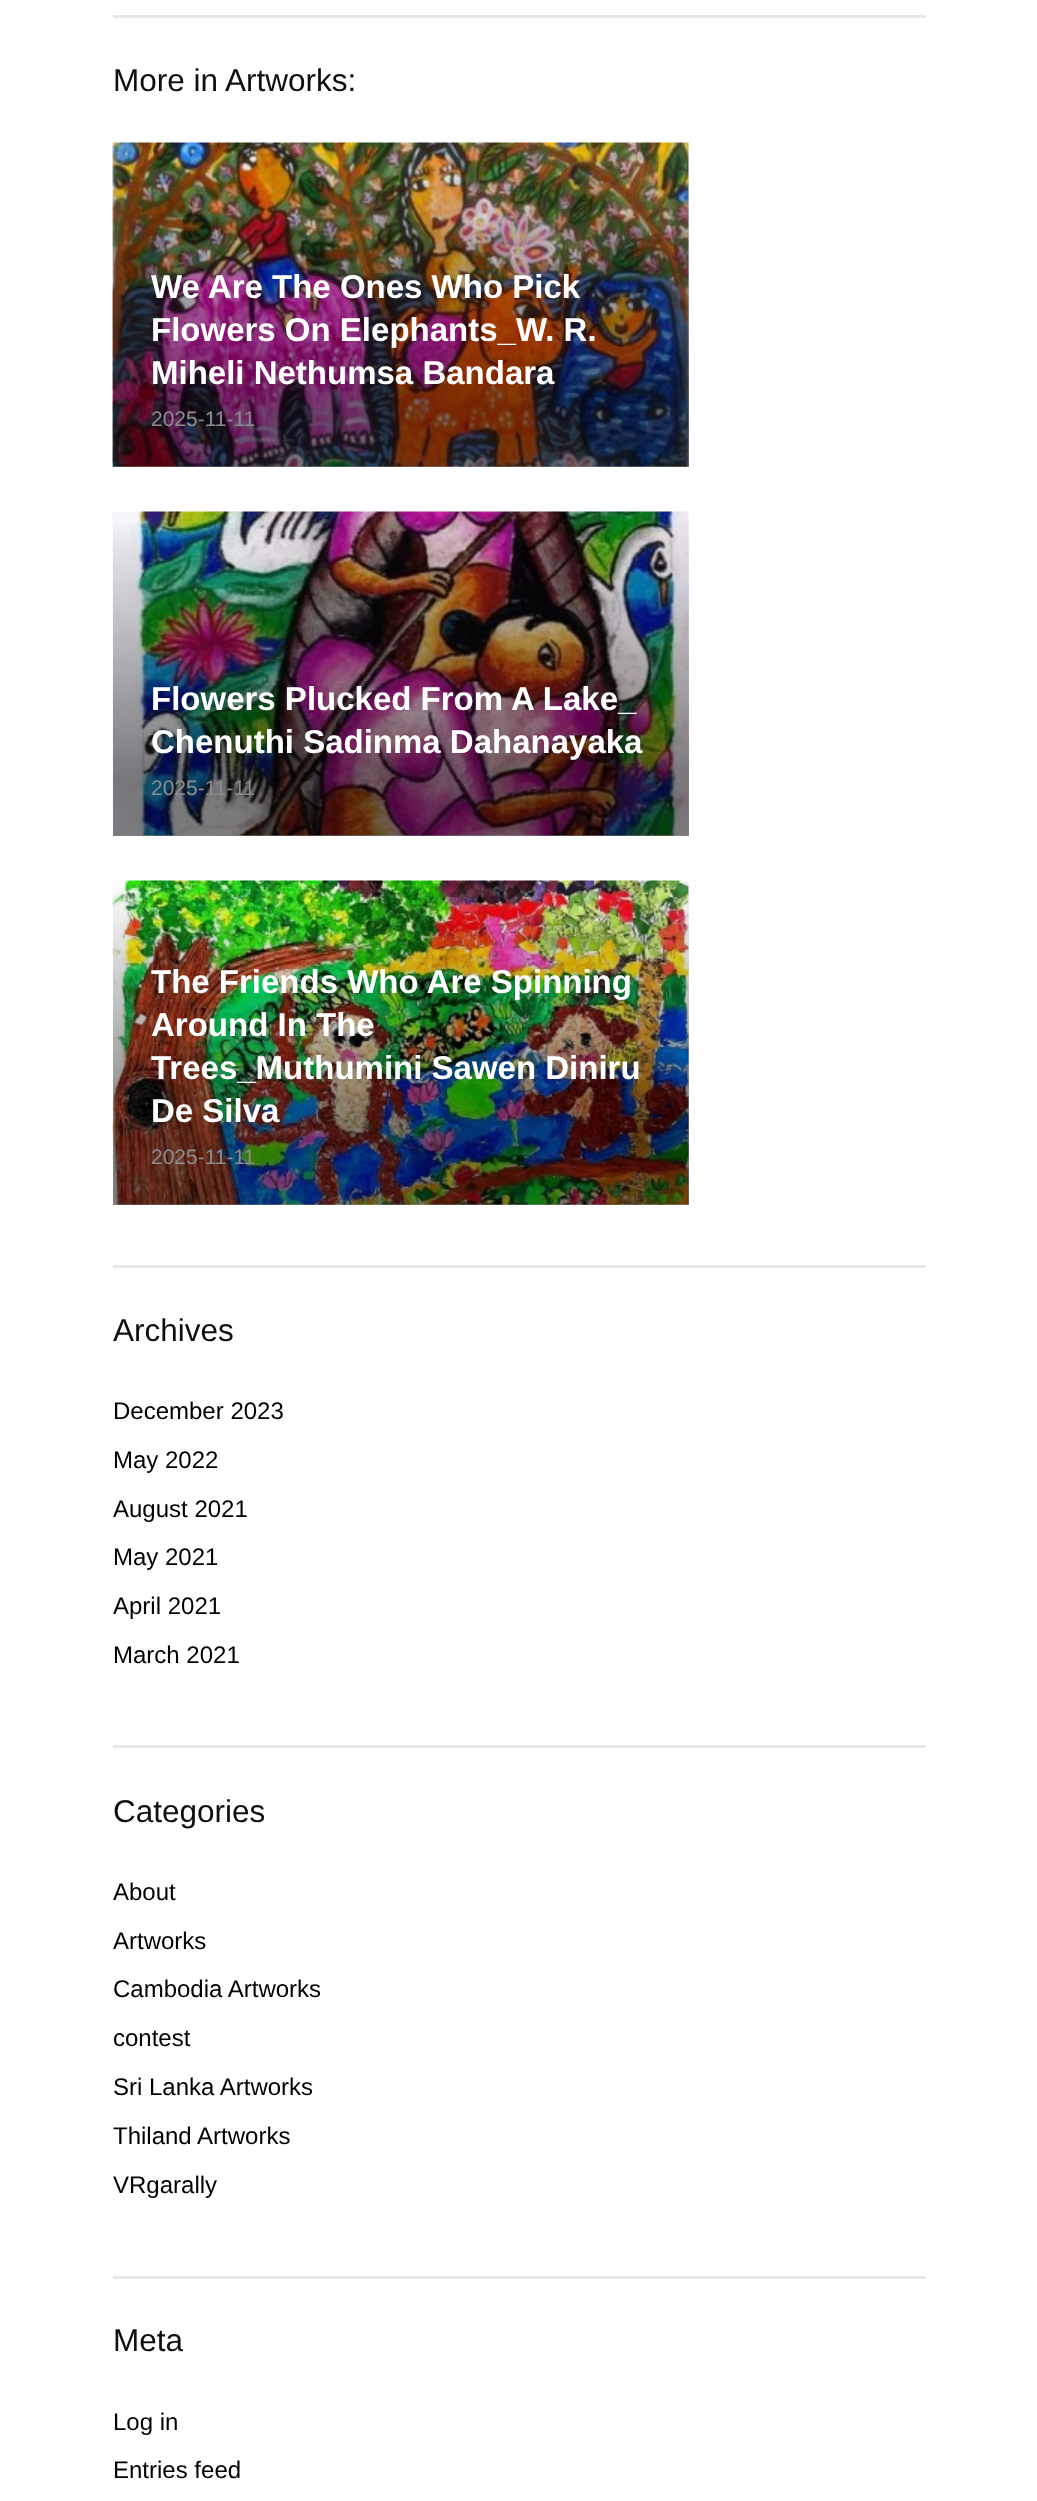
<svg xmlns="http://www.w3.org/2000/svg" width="1037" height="2501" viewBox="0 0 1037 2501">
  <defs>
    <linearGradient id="g1" gradientUnits="userSpaceOnUse" x1="401" y1="142" x2="401" y2="467"><stop offset="0" stop-color="#000" stop-opacity="0"/><stop offset="0.8" stop-color="#000" stop-opacity="0.5"/><stop offset="1" stop-color="#000" stop-opacity="0.5"/></linearGradient>
    <linearGradient id="g2" gradientUnits="userSpaceOnUse" x1="401" y1="512" x2="401" y2="836"><stop offset="0" stop-color="#000" stop-opacity="0"/><stop offset="0.8" stop-color="#000" stop-opacity="0.5"/><stop offset="1" stop-color="#000" stop-opacity="0.5"/></linearGradient>
    <linearGradient id="g3" gradientUnits="userSpaceOnUse" x1="401" y1="881" x2="401" y2="1205"><stop offset="0" stop-color="#000" stop-opacity="0"/><stop offset="0.8" stop-color="#000" stop-opacity="0.5"/><stop offset="1" stop-color="#000" stop-opacity="0.5"/></linearGradient>
  </defs>
  <rect width="100%" height="100%" fill="#fff"/>
  <path d="M113 15h813v3H113z" fill="#e8e8e8"/>
  <image x="112" y="142" width="577" height="325" href="img/1.png"/>
  <path d="M113 153h576v314H113z" fill="url(#g1)"/>
  <image x="112" y="511" width="577" height="325" href="img/2.png"/>
  <path d="M113 523h576v313H113z" fill="url(#g2)"/>
  <image x="112" y="880" width="577" height="325" href="img/3.png"/>
  <path d="M113 892h576v313H113z" fill="url(#g3)"/>
  <path d="M113 1265h813v3H113z" fill="#e8e8e8"/>
  <path d="M113 1745h813v3H113z" fill="#e8e8e8"/>
  <path d="M113 2276h813v3H113z" fill="#e8e8e8"/>
  <text x="113" y="91" font-family="Liberation Sans" font-size="31.5" fill="#0f0f0f">More in Artworks:</text>
  <g font-family="Liberation Sans" font-size="33" font-weight="bold" fill="#fff">
    <text x="151" y="298">We Are The Ones Who Pick</text>
    <text x="151" y="341">Flowers On Elephants_W. R.</text>
    <text x="151" y="384">Miheli Nethumsa Bandara</text>
  </g>
  <text x="151" y="426" font-family="Liberation Sans" font-size="21" fill="#8f8c8f">2025-11-11</text>
  <g font-family="Liberation Sans" font-size="33" font-weight="bold" fill="#fff">
    <text x="151" y="710">Flowers Plucked From A Lake_</text>
    <text x="151" y="753">Chenuthi Sadinma Dahanayaka</text>
  </g>
  <text x="151" y="795" font-family="Liberation Sans" font-size="21" fill="#8f8c8f">2025-11-11</text>
  <g font-family="Liberation Sans" font-size="33" font-weight="bold" fill="#fff">
    <text x="151" y="993">The Friends Who Are Spinning</text>
    <text x="151" y="1036">Around In The</text>
    <text x="151" y="1079">Trees_Muthumini Sawen Diniru</text>
    <text x="151" y="1122">De Silva</text>
  </g>
  <text x="151" y="1164" font-family="Liberation Sans" font-size="21" fill="#8f8c8f">2025-11-11</text>
  <text x="113" y="1341" font-family="Liberation Sans" font-size="31.5" fill="#0f0f0f">Archives</text>
  <g font-family="Liberation Sans" font-size="24" fill="#000">
    <text x="113" y="1419">December 2023</text>
    <text x="113" y="1468">May 2022</text>
    <text x="113" y="1517">August 2021</text>
    <text x="113" y="1565">May 2021</text>
    <text x="113" y="1614">April 2021</text>
    <text x="113" y="1663">March 2021</text>
  </g>
  <text x="113" y="1822" font-family="Liberation Sans" font-size="31.5" fill="#0f0f0f">Categories</text>
  <g font-family="Liberation Sans" font-size="24" fill="#000">
    <text x="113" y="1900">About</text>
    <text x="113" y="1949">Artworks</text>
    <text x="113" y="1997">Cambodia Artworks</text>
    <text x="113" y="2046">contest</text>
    <text x="113" y="2095">Sri Lanka Artworks</text>
    <text x="113" y="2144">Thiland Artworks</text>
    <text x="113" y="2193">VRgarally</text>
  </g>
  <text x="113" y="2351" font-family="Liberation Sans" font-size="31.5" fill="#0f0f0f">Meta</text>
  <g font-family="Liberation Sans" font-size="24" fill="#000">
    <text x="113" y="2430">Log in</text>
    <text x="113" y="2478">Entries feed</text>
  </g>
</svg>
